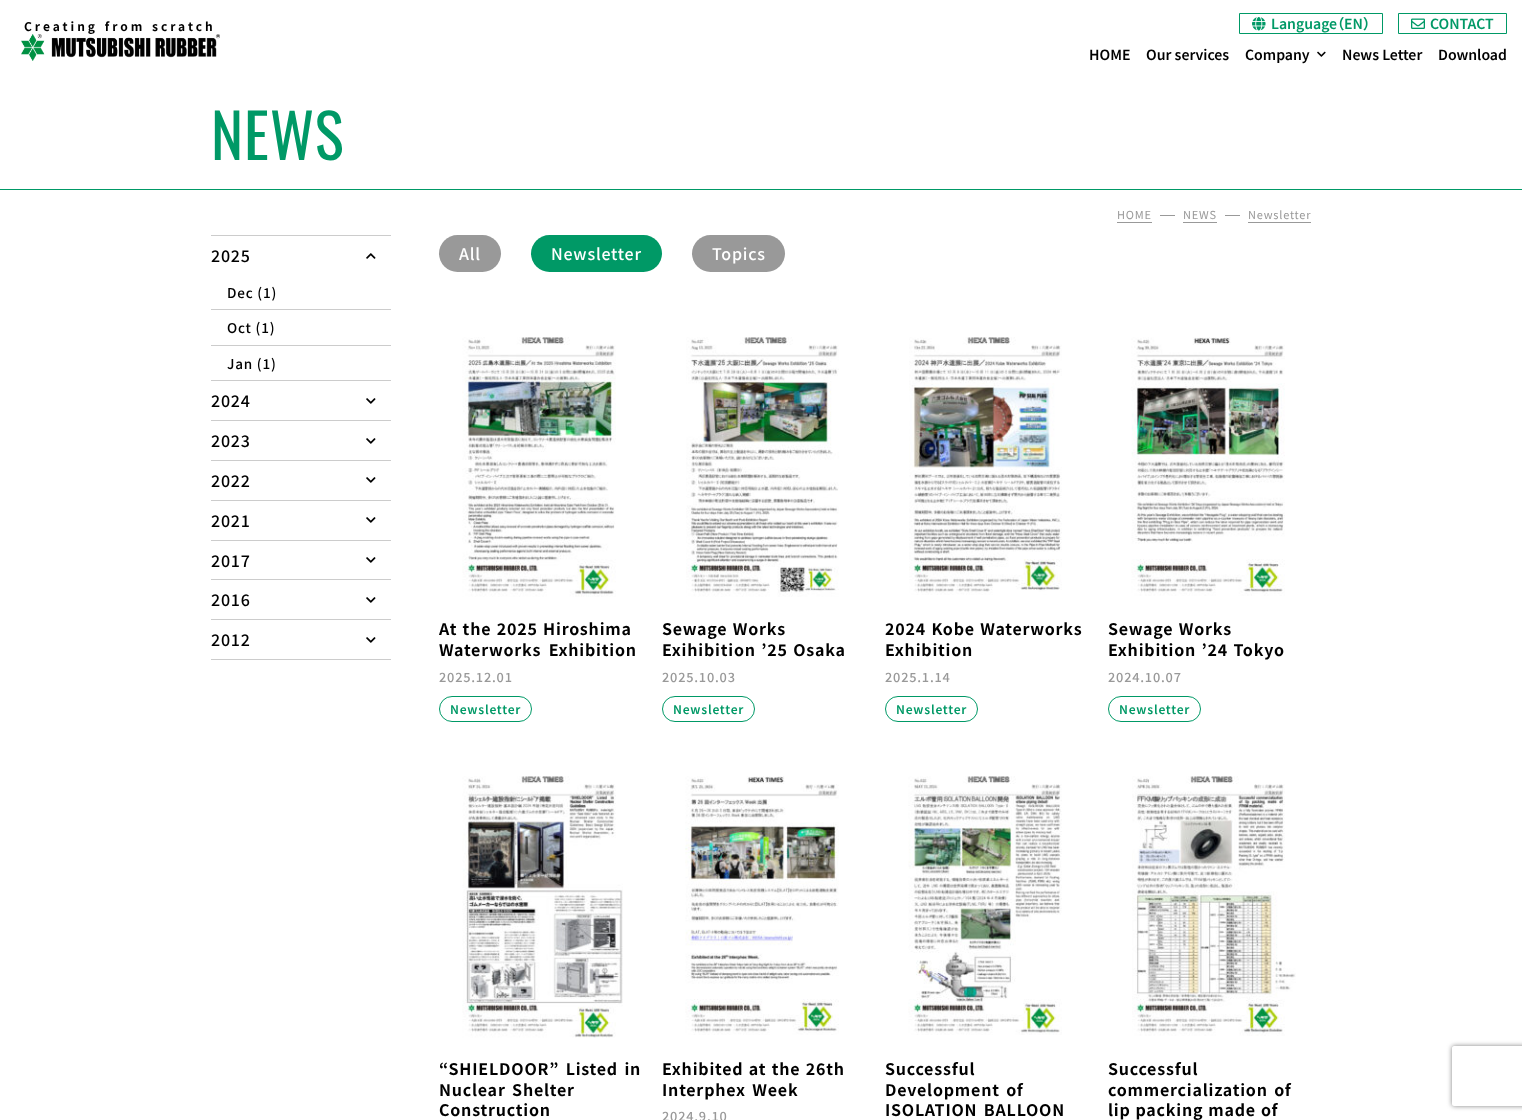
<svg xmlns="http://www.w3.org/2000/svg" width="1522" height="1120" viewBox="0 0 1522 1120">
  <defs>
    <clipPath id="clip1"><path d="M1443 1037H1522V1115H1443ZM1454 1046H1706C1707 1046 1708 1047 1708 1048V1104C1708 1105 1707 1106 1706 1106H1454C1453 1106 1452 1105 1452 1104V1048C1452 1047 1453 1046 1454 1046Z" clip-rule="evenodd"/></clipPath>
  </defs>
  <rect width="100%" height="100%" fill="#fff"/>
  <image x="21" y="34" width="199" height="27" href="img/1.png"/>
  <path d="M1239.5 13.5h143v20H1239.5z" fill="none" stroke="#096"/>
  <image x="1252" y="17" width="14" height="14" href="img/2.png"/>
  <path d="M1398.5 13.5h108v20H1398.5z" fill="none" stroke="#096"/>
  <image x="1411" y="18" width="14" height="11" href="img/3.png"/>
  <image x="1317" y="51" width="9" height="6" href="img/4.png"/>
  <path d="M0 189h1522v1H0z" fill="#096"/>
  <path d="M1117 222h35v1H1117z" fill="#999"/>
  <path d="M1160 215h15v1H1160z" fill="#999"/>
  <path d="M1183 222h34v1H1183z" fill="#999"/>
  <path d="M1225 215h15v1H1225z" fill="#999"/>
  <path d="M1248 222h63v1H1248z" fill="#999"/>
  <path d="M211 235h180v1H211z" fill="#ccc"/>
  <image x="366" y="253" width="10" height="6" href="img/5.png"/>
  <path d="M211 309h180v1H211z" fill="#ccc"/>
  <path d="M211 345h180v1H211z" fill="#ccc"/>
  <path d="M211 380h180v1H211z" fill="#ccc"/>
  <image x="366" y="398" width="10" height="6" href="img/6.png"/>
  <path d="M211 420h180v1H211z" fill="#ccc"/>
  <image x="366" y="438" width="10" height="6" href="img/6.png"/>
  <path d="M211 460h180v1H211z" fill="#ccc"/>
  <image x="366" y="477" width="10" height="6" href="img/6.png"/>
  <path d="M211 500h180v1H211z" fill="#ccc"/>
  <image x="366" y="517" width="10" height="6" href="img/6.png"/>
  <path d="M211 540h180v1H211z" fill="#ccc"/>
  <image x="366" y="557" width="10" height="6" href="img/6.png"/>
  <path d="M211 579h180v1H211z" fill="#ccc"/>
  <image x="366" y="597" width="10" height="6" href="img/6.png"/>
  <path d="M211 619h180v1H211z" fill="#ccc"/>
  <path d="M211 659h180v1H211z" fill="#ccc"/>
  <image x="366" y="637" width="10" height="6" href="img/6.png"/>
  <rect x="439" y="235" width="62" height="37" rx="18.5" fill="#999"/>
  <rect x="531" y="235" width="131" height="37" rx="18.5" fill="#096"/>
  <rect x="692" y="235" width="93" height="37" rx="18.5" fill="#999"/>
  <image x="462" y="337" width="154" height="260" href="img/7.png"/>
  <rect x="439.5" y="696.5" width="92" height="25" rx="12.5" fill="none" stroke="#096"/>
  <image x="686" y="337" width="153" height="260" href="img/8.png"/>
  <rect x="662.5" y="696.5" width="92" height="25" rx="12.5" fill="none" stroke="#096"/>
  <image x="909" y="337" width="153" height="258" href="img/9.png"/>
  <rect x="885.5" y="696.5" width="92" height="25" rx="12.5" fill="none" stroke="#096"/>
  <image x="1131" y="337" width="154" height="259" href="img/10.png"/>
  <rect x="1108.5" y="696.5" width="92" height="25" rx="12.5" fill="none" stroke="#096"/>
  <image x="462" y="776" width="161" height="262" href="img/11.png"/>
  <image x="685" y="776" width="154" height="259" href="img/12.png"/>
  <image x="908" y="776" width="154" height="259" href="img/13.png"/>
  <image x="1132" y="776" width="164" height="260" href="img/14.png"/>
  <g clip-path="url(#clip1)">
    <rect x="1452" y="1046" width="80" height="60" rx="2" fill="#808080" filter="blur(2.5px)"/>
  </g>
  <text x="24" y="31" word-spacing="1" font-family="Noto Sans JP" font-size="12" font-weight="bold" letter-spacing="3" fill="#000">Creating from scratch</text>
  <text x="1271" y="29" font-family="Noto Sans JP" font-size="14" font-weight="600" fill="#096">Language</text>
  <text x="1337" y="29" font-family="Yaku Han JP" font-size="14" font-weight="bold" fill="#096">（</text>
  <text x="1344" y="29" font-family="Noto Sans JP" font-size="14" font-weight="600" fill="#096">EN</text>
  <text x="1363" y="29" font-family="Yaku Han JP" font-size="14" font-weight="bold" fill="#096">）</text>
  <text x="1430" y="29" font-family="Noto Sans JP" font-size="14" font-weight="600" fill="#096">CONTACT</text>
  <g font-family="Noto Sans JP" font-size="14" font-weight="600" fill="#000">
    <text x="1089" y="60">HOME</text>
    <text x="1146" y="60">Our services</text>
    <text x="1245" y="60">Company</text>
    <text x="1342" y="60">News Letter</text>
    <text x="1438" y="60">Download</text>
  </g>
  <text x="211" y="160" font-family="Oswald" font-size="61" letter-spacing="0.8" fill="#096">NEWS</text>
  <g font-family="Noto Sans JP" font-size="11" letter-spacing="0.8" fill="#999">
    <text x="1117" y="219">HOME</text>
    <text x="1183" y="219">NEWS</text>
    <text x="1248" y="219">Newsletter</text>
  </g>
  <text x="211" y="262" font-family="Noto Sans JP" font-size="16" font-weight="500" letter-spacing="0.8" fill="#000">2025</text>
  <g font-family="Noto Sans JP" font-size="13.5" font-weight="500" letter-spacing="0.8" fill="#000">
    <text x="227" y="298">Dec (1)</text>
    <text x="227" y="333">Oct (1)</text>
    <text x="227" y="369">Jan (1)</text>
  </g>
  <g font-family="Noto Sans JP" font-size="16" font-weight="500" letter-spacing="0.8" fill="#000">
    <text x="211" y="407">2024</text>
    <text x="211" y="447">2023</text>
    <text x="211" y="487">2022</text>
    <text x="211" y="527">2021</text>
    <text x="211" y="567">2017</text>
    <text x="211" y="606">2016</text>
    <text x="211" y="646">2012</text>
  </g>
  <g font-family="Noto Sans JP" font-size="16" font-weight="500" letter-spacing="0.8" fill="#fff">
    <text x="459" y="260">All</text>
    <text x="551" y="260">Newsletter</text>
    <text x="712" y="260">Topics</text>
  </g>
  <g font-family="Noto Sans JP" font-size="16" font-weight="bold" letter-spacing="0.8" fill="#000">
    <text x="439" y="635" word-spacing="1">At the 2025 Hiroshima</text>
    <text x="439" y="656" word-spacing="3">Waterworks Exhibition</text>
  </g>
  <text x="439" y="682" font-family="Noto Sans JP" font-size="12.75" font-weight="500" letter-spacing="0.8" fill="#999">2025.12.01</text>
  <text x="450" y="714" font-family="Noto Sans JP" font-size="12" font-weight="600" letter-spacing="0.8" fill="#096">Newsletter</text>
  <g font-family="Noto Sans JP" font-size="16" font-weight="bold" letter-spacing="0.8" fill="#000">
    <text x="662" y="635" word-spacing="1">Sewage Works</text>
    <text x="662" y="656" word-spacing="1">Exihibition ’25 Osaka</text>
  </g>
  <text x="662" y="682" font-family="Noto Sans JP" font-size="12.75" font-weight="500" letter-spacing="0.8" fill="#999">2025.10.03</text>
  <text x="673" y="714" font-family="Noto Sans JP" font-size="12" font-weight="600" letter-spacing="0.8" fill="#096">Newsletter</text>
  <g font-family="Noto Sans JP" font-size="16" font-weight="bold" letter-spacing="0.8" fill="#000">
    <text x="885" y="635" word-spacing="1">2024 Kobe Waterworks</text>
    <text x="885" y="656">Exhibition</text>
  </g>
  <text x="885" y="682" font-family="Noto Sans JP" font-size="12.75" font-weight="500" letter-spacing="0.8" fill="#999">2025.1.14</text>
  <text x="896" y="714" font-family="Noto Sans JP" font-size="12" font-weight="600" letter-spacing="0.8" fill="#096">Newsletter</text>
  <g font-family="Noto Sans JP" font-size="16" font-weight="bold" letter-spacing="0.8" fill="#000">
    <text x="1108" y="635" word-spacing="1">Sewage Works</text>
    <text x="1108" y="656" word-spacing="1">Exhibition ’24 Tokyo</text>
  </g>
  <text x="1108" y="682" font-family="Noto Sans JP" font-size="12.75" font-weight="500" letter-spacing="0.8" fill="#999">2024.10.07</text>
  <text x="1119" y="714" font-family="Noto Sans JP" font-size="12" font-weight="600" letter-spacing="0.8" fill="#096">Newsletter</text>
  <g font-family="Noto Sans JP" font-size="16" font-weight="bold" letter-spacing="0.8" fill="#000">
    <text x="439" y="1075" word-spacing="2">“SHIELDOOR” Listed in</text>
    <text x="439" y="1096" word-spacing="2">Nuclear Shelter</text>
    <text x="439" y="1116">Construction</text>
    <text x="662" y="1075" word-spacing="1">Exhibited at the 26th</text>
    <text x="662" y="1096" word-spacing="2">Interphex Week</text>
  </g>
  <text x="662" y="1121" font-family="Noto Sans JP" font-size="12.75" font-weight="500" letter-spacing="0.8" fill="#999">2024.9.10</text>
  <g font-family="Noto Sans JP" font-size="16" font-weight="bold" letter-spacing="0.8" fill="#000">
    <text x="885" y="1075">Successful</text>
    <text x="885" y="1096" word-spacing="2">Development of</text>
    <text x="885" y="1116" word-spacing="2">ISOLATION BALLOON</text>
    <text x="1108" y="1075">Successful</text>
    <text x="1108" y="1096" word-spacing="2">commercialization of</text>
    <text x="1108" y="1116" word-spacing="0.5">lip packing made of</text>
  </g>
</svg>
